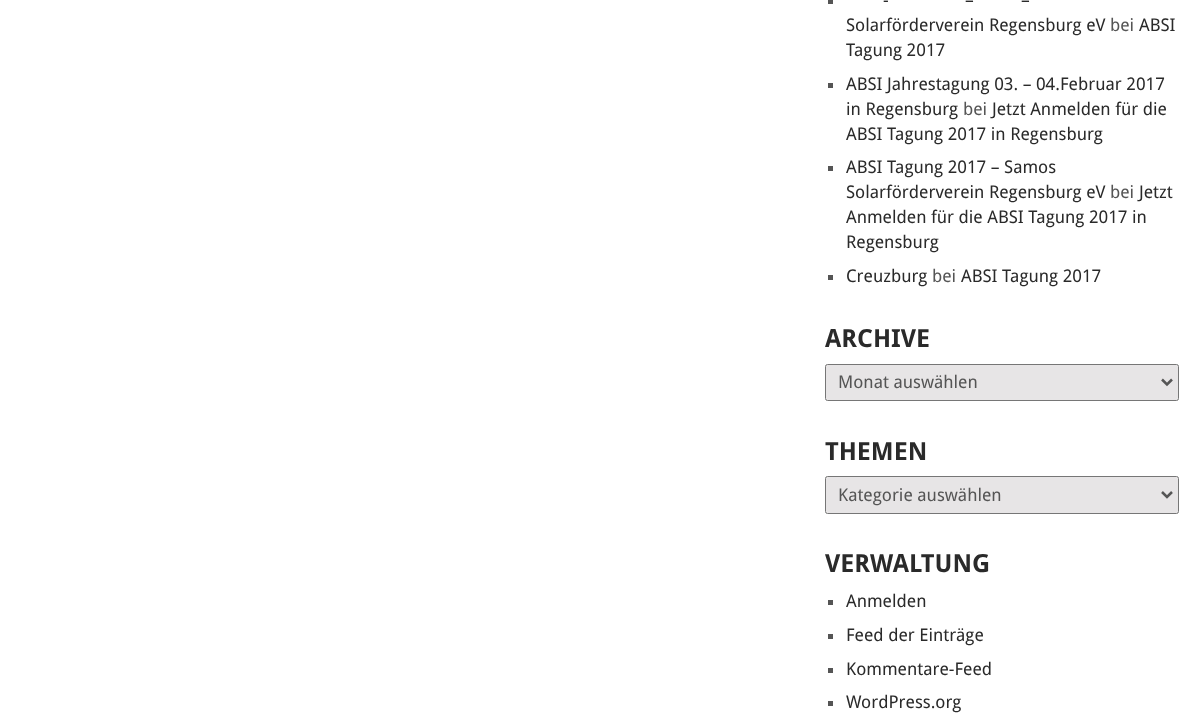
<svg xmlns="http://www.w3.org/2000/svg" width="1202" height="726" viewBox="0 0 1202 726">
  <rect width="100%" height="100%" fill="#fff"/>
  <path d="M828 0h5v4H828z" fill="#555"/>
  <path d="M828 83h5v5H828z" fill="#555"/>
  <path d="M828 166h5v5H828z" fill="#555"/>
  <path d="M828 275h5v5H828z" fill="#555"/>
  <rect x="825.5" y="364.5" width="353" height="36" rx="2" fill="#e7e5e6" stroke="#767676"/>
  <path d="M1162 379.5L1167 384.5L1172 379.5" fill="none" stroke="#555" stroke-width="2.5"/>
  <rect x="825.5" y="476.5" width="353" height="37" rx="2" fill="#e7e5e6" stroke="#767676"/>
  <path d="M1162 492L1167 497L1172 492" fill="none" stroke="#555" stroke-width="2.5"/>
  <path d="M828 600h5v5H828z" fill="#555"/>
  <path d="M828 634h5v5H828z" fill="#555"/>
  <path d="M828 668h5v5H828z" fill="#555"/>
  <path d="M828 701h5v5H828z" fill="#555"/>
  <g font-family="Droid Sans" font-size="17.5" fill="#2a2a2a">
    <text x="883" y="6">-</text>
    <text x="965" y="6">–</text>
    <text x="1021" y="6">–</text>
    <text x="846" y="31">Solarförderverein Regensburg eV</text>
  </g>
  <text x="1110" y="31" font-family="Droid Sans" font-size="17.5" fill="#555">bei</text>
  <g font-family="Droid Sans" font-size="17.5" fill="#2a2a2a">
    <text x="1139" y="31">ABSI</text>
    <text x="846" y="56">Tagung 2017</text>
    <text x="846" y="90">ABSI Jahrestagung 03. – 04.Februar 2017</text>
    <text x="846" y="115">in Regensburg</text>
  </g>
  <text x="963" y="115" font-family="Droid Sans" font-size="17.5" fill="#555">bei</text>
  <g font-family="Droid Sans" font-size="17.5" fill="#2a2a2a">
    <text x="992" y="115">Jetzt Anmelden für die</text>
    <text x="846" y="140">ABSI Tagung 2017 in Regensburg</text>
    <text x="846" y="173">ABSI Tagung 2017 – Samos</text>
    <text x="846" y="198">Solarförderverein Regensburg eV</text>
  </g>
  <text x="1110" y="198" font-family="Droid Sans" font-size="17.5" fill="#555">bei</text>
  <g font-family="Droid Sans" font-size="17.5" fill="#2a2a2a">
    <text x="1139" y="198">Jetzt</text>
    <text x="846" y="223">Anmelden für die ABSI Tagung 2017 in</text>
    <text x="846" y="248">Regensburg</text>
    <text x="846" y="282">Creuzburg</text>
  </g>
  <text x="932" y="282" font-family="Droid Sans" font-size="17.5" fill="#555">bei</text>
  <text x="961" y="282" font-family="Droid Sans" font-size="17.5" fill="#2a2a2a">ABSI Tagung 2017</text>
  <text x="825" y="347" font-family="Droid Sans" font-size="25" font-weight="bold" fill="#2a2a2a">ARCHIVE</text>
  <text x="838" y="388" font-family="Droid Sans" font-size="17.5" fill="#555">Monat auswählen</text>
  <text x="825" y="460" font-family="Droid Sans" font-size="25" font-weight="bold" fill="#2a2a2a">THEMEN</text>
  <text x="838" y="501" font-family="Droid Sans" font-size="17.5" fill="#555">Kategorie auswählen</text>
  <text x="825" y="572" font-family="Droid Sans" font-size="25" font-weight="bold" fill="#2a2a2a">VERWALTUNG</text>
  <g font-family="Droid Sans" font-size="17.5" fill="#2a2a2a">
    <text x="846" y="607">Anmelden</text>
    <text x="846" y="641">Feed der Einträge</text>
    <text x="846" y="675">Kommentare-Feed</text>
    <text x="846" y="708">WordPress.org</text>
  </g>
</svg>
